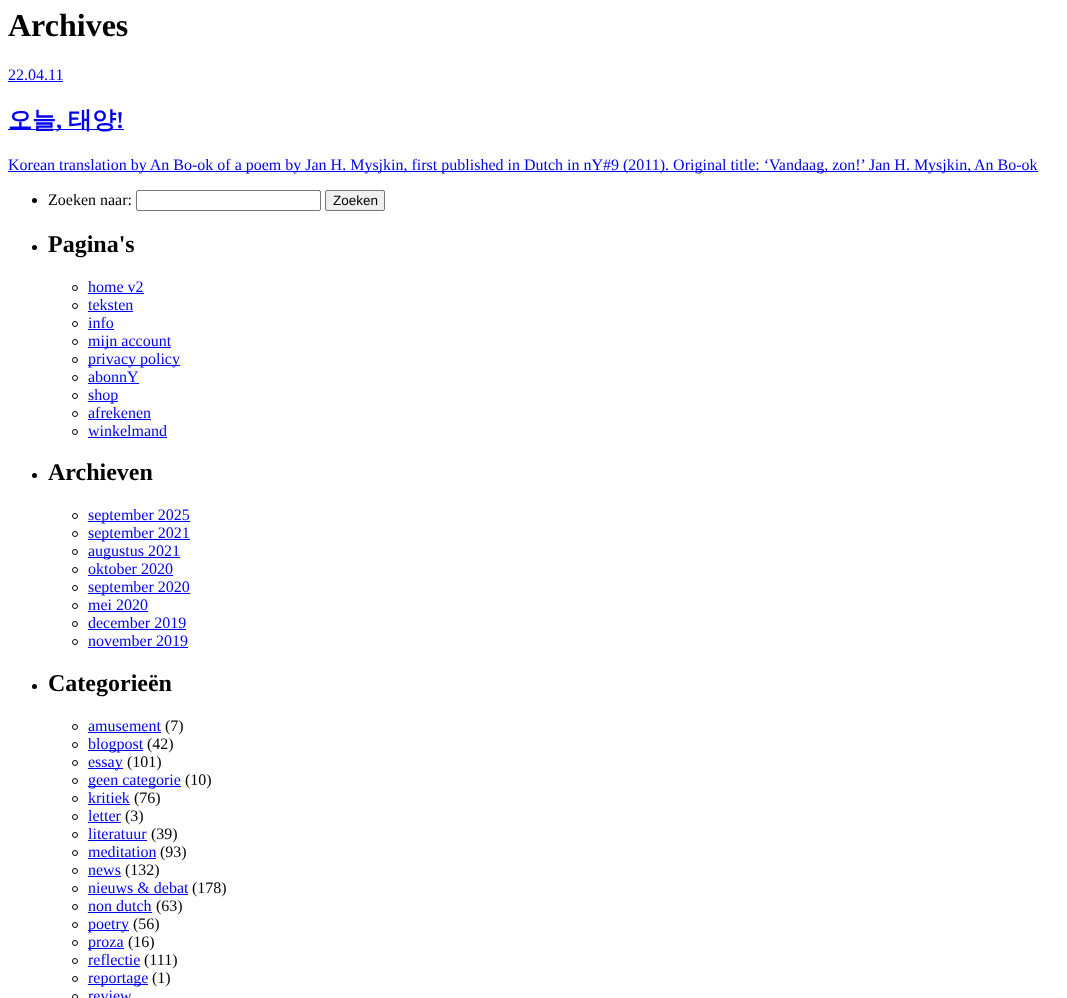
<svg xmlns="http://www.w3.org/2000/svg" width="1067" height="998" viewBox="0 0 1067 998">
  <rect width="100%" height="100%" fill="#fff"/>
  <path d="M8 81h55v1H8z" fill="#00e"/>
  <path d="M8 129h116v1H8z" fill="#00e"/>
  <path d="M8 171h1030v1H8z" fill="#00e"/>
  <circle cx="34.5" cy="200.5" r="2.5" fill="#000"/>
  <rect x="136.5" y="190.5" width="184" height="20" rx="1.5" fill="none" stroke="#767676"/>
  <rect x="325.5" y="190.5" width="59" height="20" rx="1.5" fill="#efefef" stroke="#767676"/>
  <circle cx="34.5" cy="247.5" r="2.5" fill="#000"/>
  <circle cx="75" cy="288" r="2.5" fill="none" stroke="#000"/>
  <path d="M88 293h56v1H88z" fill="#00e"/>
  <circle cx="75" cy="306" r="2.5" fill="none" stroke="#000"/>
  <path d="M88 311h45v1H88z" fill="#00e"/>
  <circle cx="75" cy="324" r="2.5" fill="none" stroke="#000"/>
  <path d="M88 329h26v1H88z" fill="#00e"/>
  <circle cx="75" cy="342" r="2.5" fill="none" stroke="#000"/>
  <path d="M88 347h83v1H88z" fill="#00e"/>
  <circle cx="75" cy="360" r="2.5" fill="none" stroke="#000"/>
  <path d="M88 365h92v1H88z" fill="#00e"/>
  <circle cx="75" cy="378" r="2.5" fill="none" stroke="#000"/>
  <path d="M88 383h51v1H88z" fill="#00e"/>
  <circle cx="75" cy="396" r="2.5" fill="none" stroke="#000"/>
  <path d="M88 401h30v1H88z" fill="#00e"/>
  <circle cx="75" cy="414" r="2.5" fill="none" stroke="#000"/>
  <path d="M88 419h63v1H88z" fill="#00e"/>
  <circle cx="75" cy="432" r="2.5" fill="none" stroke="#000"/>
  <path d="M88 437h79v1H88z" fill="#00e"/>
  <circle cx="34.5" cy="475.5" r="2.5" fill="#000"/>
  <circle cx="75" cy="516" r="2.5" fill="none" stroke="#000"/>
  <path d="M88 521h102v1H88z" fill="#00e"/>
  <circle cx="75" cy="534" r="2.5" fill="none" stroke="#000"/>
  <path d="M88 539h102v1H88z" fill="#00e"/>
  <circle cx="75" cy="552" r="2.5" fill="none" stroke="#000"/>
  <path d="M88 557h92v1H88z" fill="#00e"/>
  <circle cx="75" cy="570" r="2.5" fill="none" stroke="#000"/>
  <path d="M88 575h85v1H88z" fill="#00e"/>
  <circle cx="75" cy="588" r="2.5" fill="none" stroke="#000"/>
  <path d="M88 593h102v1H88z" fill="#00e"/>
  <circle cx="75" cy="606" r="2.5" fill="none" stroke="#000"/>
  <path d="M88 611h60v1H88z" fill="#00e"/>
  <circle cx="75" cy="624" r="2.5" fill="none" stroke="#000"/>
  <path d="M88 629h98v1H88z" fill="#00e"/>
  <circle cx="75" cy="642" r="2.5" fill="none" stroke="#000"/>
  <path d="M88 647h100v1H88z" fill="#00e"/>
  <circle cx="34.5" cy="686.5" r="2.5" fill="#000"/>
  <circle cx="75" cy="727" r="2.5" fill="none" stroke="#000"/>
  <path d="M88 732h73v1H88z" fill="#00e"/>
  <circle cx="75" cy="745" r="2.5" fill="none" stroke="#000"/>
  <path d="M88 750h55v1H88z" fill="#00e"/>
  <circle cx="75" cy="763" r="2.5" fill="none" stroke="#000"/>
  <path d="M88 768h35v1H88z" fill="#00e"/>
  <circle cx="75" cy="781" r="2.5" fill="none" stroke="#000"/>
  <path d="M88 786h93v1H88z" fill="#00e"/>
  <circle cx="75" cy="799" r="2.5" fill="none" stroke="#000"/>
  <path d="M88 804h42v1H88z" fill="#00e"/>
  <circle cx="75" cy="817" r="2.5" fill="none" stroke="#000"/>
  <path d="M88 822h33v1H88z" fill="#00e"/>
  <circle cx="75" cy="835" r="2.5" fill="none" stroke="#000"/>
  <path d="M88 840h59v1H88z" fill="#00e"/>
  <circle cx="75" cy="853" r="2.5" fill="none" stroke="#000"/>
  <path d="M88 858h68v1H88z" fill="#00e"/>
  <circle cx="75" cy="871" r="2.5" fill="none" stroke="#000"/>
  <path d="M88 876h33v1H88z" fill="#00e"/>
  <circle cx="75" cy="889" r="2.5" fill="none" stroke="#000"/>
  <path d="M88 894h100v1H88z" fill="#00e"/>
  <circle cx="75" cy="907" r="2.5" fill="none" stroke="#000"/>
  <path d="M88 912h64v1H88z" fill="#00e"/>
  <circle cx="75" cy="925" r="2.5" fill="none" stroke="#000"/>
  <path d="M88 930h41v1H88z" fill="#00e"/>
  <circle cx="75" cy="943" r="2.5" fill="none" stroke="#000"/>
  <path d="M88 948h36v1H88z" fill="#00e"/>
  <circle cx="75" cy="961" r="2.5" fill="none" stroke="#000"/>
  <path d="M88 966h52v1H88z" fill="#00e"/>
  <circle cx="75" cy="979" r="2.5" fill="none" stroke="#000"/>
  <path d="M88 984h60v1H88z" fill="#00e"/>
  <circle cx="75" cy="997" r="2.5" fill="none" stroke="#000"/>
  <text x="8" y="36" font-family="Liberation Serif" font-size="32" font-weight="bold" fill="#000">Archives</text>
  <text x="8" y="80" font-family="Liberation Serif" font-size="16" fill="#00e">22.04.11</text>
  <text x="8" y="128" font-family="WenQuanYi Zen Hei" font-size="24" font-weight="bold" fill="#00e">오늘</text>
  <text x="56" y="128" font-family="Liberation Serif" font-size="24" font-weight="bold" fill="#00e">,</text>
  <text x="68" y="128" font-family="WenQuanYi Zen Hei" font-size="24" font-weight="bold" fill="#00e">태양</text>
  <text x="116" y="128" font-family="Liberation Serif" font-size="24" font-weight="bold" fill="#00e">!</text>
  <g font-family="Liberation Serif" font-size="16" fill="#00e">
    <text x="8" y="170">Korean translation by An Bo-ok of a poem by Jan H. Mysjkin, first published in Dutch in nY#9 (2011). Original title: ‘Vandaag, zon!’</text>
    <text x="869" y="170">Jan H. Mysjkin,</text>
    <text x="974" y="170">An Bo-ok</text>
  </g>
  <text x="48" y="205" font-family="Liberation Serif" font-size="16" fill="#000">Zoeken naar:</text>
  <text x="333" y="205" font-family="Liberation Sans" font-size="13.5" fill="#000">Zoeken</text>
  <text x="48" y="252" font-family="Liberation Serif" font-size="24" font-weight="bold" fill="#000">Pagina's</text>
  <g font-family="Liberation Serif" font-size="16" fill="#00e">
    <text x="88" y="292">home v2</text>
    <text x="88" y="310">teksten</text>
    <text x="88" y="328">info</text>
    <text x="88" y="346">mijn account</text>
    <text x="88" y="364">privacy policy</text>
    <text x="88" y="382">abonnY</text>
    <text x="88" y="400">shop</text>
    <text x="88" y="418">afrekenen</text>
    <text x="88" y="436">winkelmand</text>
  </g>
  <text x="48" y="480" font-family="Liberation Serif" font-size="24" font-weight="bold" fill="#000">Archieven</text>
  <g font-family="Liberation Serif" font-size="16" fill="#00e">
    <text x="88" y="520">september 2025</text>
    <text x="88" y="538">september 2021</text>
    <text x="88" y="556">augustus 2021</text>
    <text x="88" y="574">oktober 2020</text>
    <text x="88" y="592">september 2020</text>
    <text x="88" y="610">mei 2020</text>
    <text x="88" y="628">december 2019</text>
    <text x="88" y="646">november 2019</text>
  </g>
  <text x="48" y="691" font-family="Liberation Serif" font-size="24" font-weight="bold" fill="#000">Categorieën</text>
  <text x="88" y="731" font-family="Liberation Serif" font-size="16" fill="#00e">amusement</text>
  <text x="165" y="731" font-family="Liberation Serif" font-size="16" fill="#000">(7)</text>
  <text x="88" y="749" font-family="Liberation Serif" font-size="16" fill="#00e">blogpost</text>
  <text x="147" y="749" font-family="Liberation Serif" font-size="16" fill="#000">(42)</text>
  <text x="88" y="767" font-family="Liberation Serif" font-size="16" fill="#00e">essay</text>
  <text x="127" y="767" font-family="Liberation Serif" font-size="16" fill="#000">(101)</text>
  <text x="88" y="785" font-family="Liberation Serif" font-size="16" fill="#00e">geen categorie</text>
  <text x="185" y="785" font-family="Liberation Serif" font-size="16" fill="#000">(10)</text>
  <text x="88" y="803" font-family="Liberation Serif" font-size="16" fill="#00e">kritiek</text>
  <text x="134" y="803" font-family="Liberation Serif" font-size="16" fill="#000">(76)</text>
  <text x="88" y="821" font-family="Liberation Serif" font-size="16" fill="#00e">letter</text>
  <text x="125" y="821" font-family="Liberation Serif" font-size="16" fill="#000">(3)</text>
  <text x="88" y="839" font-family="Liberation Serif" font-size="16" fill="#00e">literatuur</text>
  <text x="151" y="839" font-family="Liberation Serif" font-size="16" fill="#000">(39)</text>
  <text x="88" y="857" font-family="Liberation Serif" font-size="16" fill="#00e">meditation</text>
  <text x="160" y="857" font-family="Liberation Serif" font-size="16" fill="#000">(93)</text>
  <text x="88" y="875" font-family="Liberation Serif" font-size="16" fill="#00e">news</text>
  <text x="125" y="875" font-family="Liberation Serif" font-size="16" fill="#000">(132)</text>
  <text x="88" y="893" font-family="Liberation Serif" font-size="16" fill="#00e">nieuws &amp; debat</text>
  <text x="192" y="893" font-family="Liberation Serif" font-size="16" fill="#000">(178)</text>
  <text x="88" y="911" font-family="Liberation Serif" font-size="16" fill="#00e">non dutch</text>
  <text x="156" y="911" font-family="Liberation Serif" font-size="16" fill="#000">(63)</text>
  <text x="88" y="929" font-family="Liberation Serif" font-size="16" fill="#00e">poetry</text>
  <text x="133" y="929" font-family="Liberation Serif" font-size="16" fill="#000">(56)</text>
  <text x="88" y="947" font-family="Liberation Serif" font-size="16" fill="#00e">proza</text>
  <text x="128" y="947" font-family="Liberation Serif" font-size="16" fill="#000">(16)</text>
  <text x="88" y="965" font-family="Liberation Serif" font-size="16" fill="#00e">reflectie</text>
  <text x="144" y="965" font-family="Liberation Serif" font-size="16" fill="#000">(111)</text>
  <text x="88" y="983" font-family="Liberation Serif" font-size="16" fill="#00e">reportage</text>
  <text x="152" y="983" font-family="Liberation Serif" font-size="16" fill="#000">(1)</text>
  <text x="88" y="1001" font-family="Liberation Serif" font-size="16" fill="#00e">review</text>
</svg>
